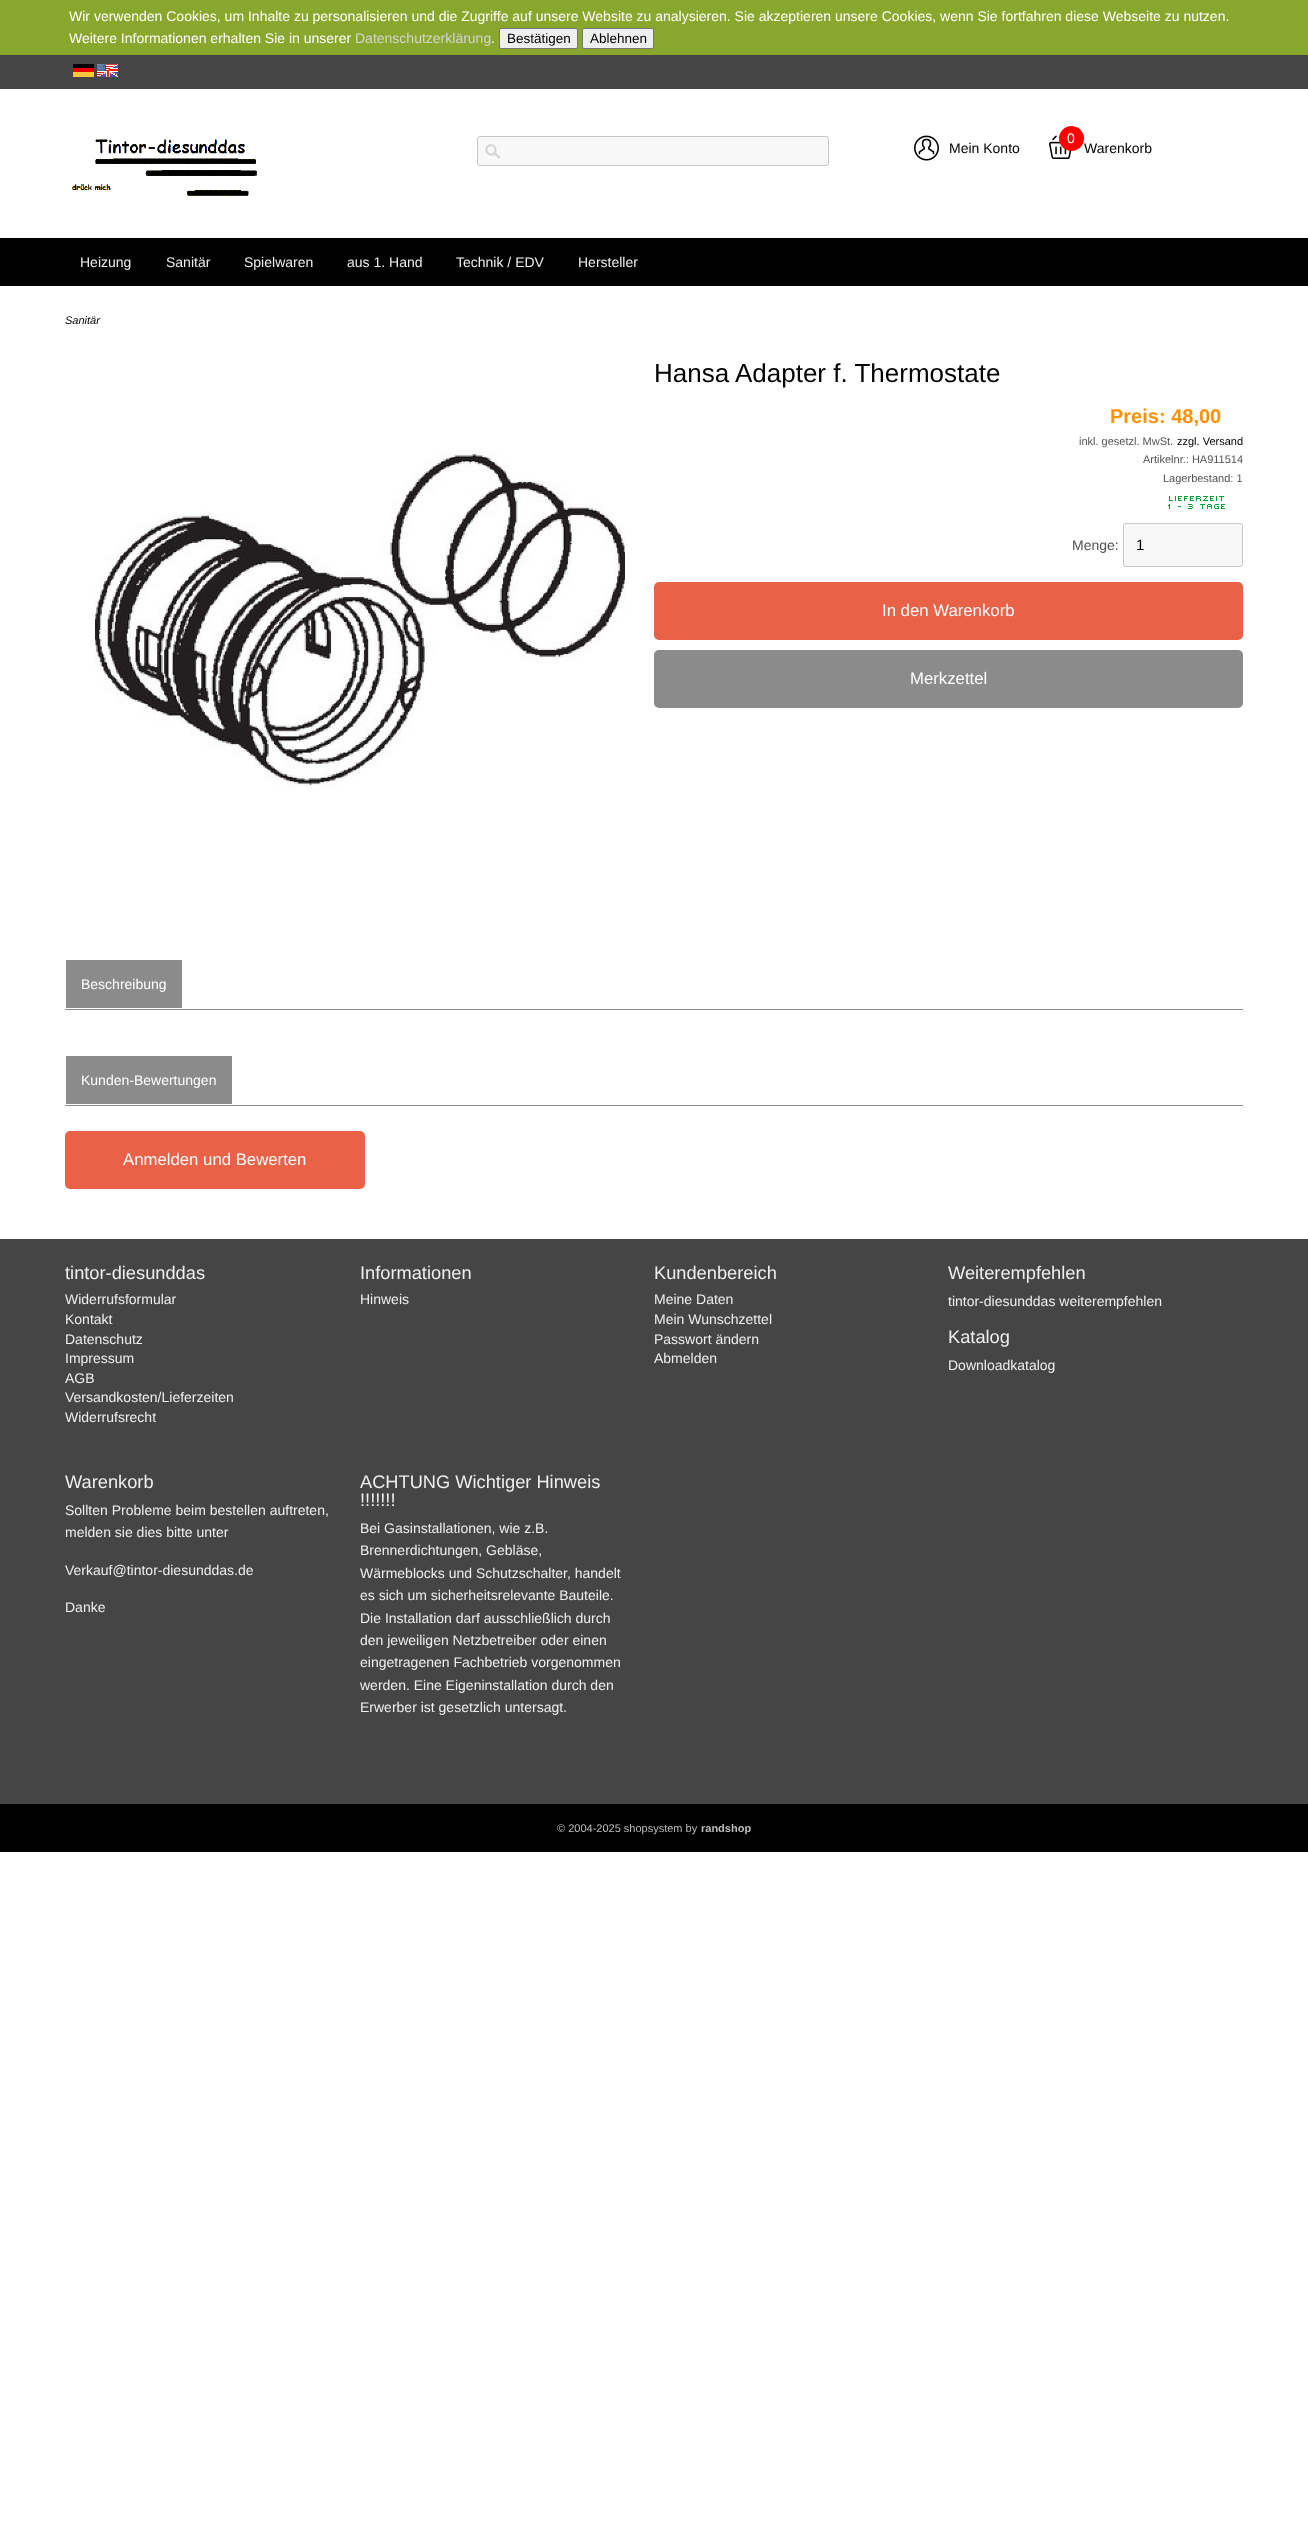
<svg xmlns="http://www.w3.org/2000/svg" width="1308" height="2546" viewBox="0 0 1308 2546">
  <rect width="100%" height="100%" fill="#fff"/>
  <path d="M0 0h1308v55H0z" fill="#8aa72d"/>
  <rect x="499.5" y="28.5" width="78" height="20" rx="1.5" fill="#efefef" stroke="#767676"/>
  <rect x="582.5" y="28.5" width="71" height="20" rx="1.5" fill="#efefef" stroke="#767676"/>
  <path d="M0 55h1308v34H0z" fill="#454545"/>
  <image x="73" y="64" width="21" height="13" href="img/1.png"/>
  <image x="97" y="64" width="21" height="13" href="img/2.png"/>
  <image x="72" y="139" width="185" height="57" href="img/3.png"/>
  <rect x="477" y="136" width="352" height="30" rx="3" fill="#f8f8f8"/>
  <image x="485" y="144" width="15" height="15" href="img/4.png"/>
  <rect x="477.5" y="136.5" width="351" height="29" rx="2.5" fill="none" stroke="#c7c7c7"/>
  <image x="914" y="135" width="25" height="26" href="img/5.png"/>
  <image x="1049" y="135" width="23" height="24" href="img/6.png"/>
  <path d="M0 238h1308v48H0z" fill="#000"/>
  <image x="95" y="450" width="530" height="339" href="img/7.png"/>
  <image x="1168" y="496" width="57" height="13" href="img/8.png"/>
  <rect x="1123.5" y="523.5" width="119" height="43" rx="2.5" fill="#f8f8f8" stroke="#c7c7c7"/>
  <rect x="654" y="582" width="589" height="58" rx="5" fill="#e96147"/>
  <rect x="654" y="650" width="589" height="58" rx="5" fill="#8b8b8b"/>
  <path d="M65 1009h1178v1H65z" fill="#8b8b8b"/>
  <path d="M66 960h116v48H66z" fill="#8b8b8b"/>
  <path d="M65 1105h1178v1H65z" fill="#8b8b8b"/>
  <path d="M66 1056h166v48H66z" fill="#8b8b8b"/>
  <rect x="65" y="1131" width="300" height="58" rx="5" fill="#e96147"/>
  <path d="M0 1239h1308v565H0z" fill="#454545"/>
  <path d="M0 1804h1308v48H0z" fill="#000"/>
  <g font-family="Liberation Sans" font-size="14" fill="#fff">
    <text x="69" y="21">Wir verwenden Cookies, um Inhalte zu personalisieren und die Zugriffe auf unsere Website zu analysieren. Sie akzeptieren unsere Cookies, wenn Sie fortfahren diese Webseite zu nutzen.</text>
    <text x="69" y="43">Weitere Informationen erhalten Sie in unserer</text>
  </g>
  <text x="355" y="43" font-family="Liberation Sans" font-size="14" fill="#d4d4d4">Datenschutzerklärung</text>
  <text x="491" y="43" font-family="Liberation Sans" font-size="14" fill="#fff">.</text>
  <g font-family="Liberation Sans" font-size="13.5" fill="#000">
    <text x="507" y="43">Bestätigen</text>
    <text x="590" y="43">Ablehnen</text>
  </g>
  <g font-family="Liberation Sans" font-size="14" fill="#000">
    <text x="949" y="153">Mein Konto</text>
    <text x="1084" y="153">Warenkorb</text>
  </g>
  <circle cx="1071.5" cy="138.5" r="12.5" fill="#f00"/>
  <text x="1067" y="143" font-family="Liberation Sans" font-size="14" fill="#fff">0</text>
  <g font-family="Liberation Sans" font-size="14" fill="#eee">
    <text x="80" y="267">Heizung</text>
    <text x="166" y="267">Sanitär</text>
    <text x="244" y="267">Spielwaren</text>
    <text x="347" y="267">aus 1. Hand</text>
    <text x="456" y="267">Technik / EDV</text>
    <text x="578" y="267">Hersteller</text>
  </g>
  <text x="65" y="324" font-family="Liberation Sans" font-size="11" font-style="italic" fill="#000">Sanitär</text>
  <text x="654" y="382" font-family="Liberation Sans" font-size="26" fill="#000">Hansa Adapter f. Thermostate</text>
  <text x="1110" y="423" font-family="Liberation Sans" font-size="20" font-weight="bold" fill="#ff9100">Preis: 48,00</text>
  <text x="1079" y="445" font-family="Liberation Sans" font-size="11" fill="#525252">inkl. gesetzl. MwSt.</text>
  <text x="1177" y="445" font-family="Liberation Sans" font-size="11" fill="#000">zzgl. Versand</text>
  <g font-family="Liberation Sans" font-size="11" fill="#525252">
    <text x="1143" y="463">Artikelnr.: HA911514</text>
    <text x="1163" y="482">Lagerbestand: 1</text>
  </g>
  <text x="1072" y="550" font-family="Liberation Sans" font-size="14" fill="#525252">Menge:</text>
  <text x="1136" y="550" font-family="Liberation Sans" font-size="15" fill="#000">1</text>
  <g font-family="Liberation Sans" font-size="16.75" fill="#fff">
    <text x="882" y="616">In den Warenkorb</text>
    <text x="910" y="684">Merkzettel</text>
  </g>
  <g font-family="Liberation Sans" font-size="14" fill="#fff">
    <text x="81" y="989">Beschreibung</text>
    <text x="81" y="1085">Kunden-Bewertungen</text>
  </g>
  <text x="123" y="1165" font-family="Liberation Sans" font-size="16.75" fill="#fff">Anmelden und Bewerten</text>
  <text x="65" y="1279" font-family="Liberation Sans" font-size="18.25" fill="#eee">tintor-diesunddas</text>
  <g font-family="Liberation Sans" font-size="14" fill="#eee">
    <text x="65" y="1304">Widerrufsformular</text>
    <text x="65" y="1324">Kontakt</text>
    <text x="65" y="1344">Datenschutz</text>
    <text x="65" y="1363">Impressum</text>
    <text x="65" y="1383">AGB</text>
    <text x="65" y="1402">Versandkosten/Lieferzeiten</text>
    <text x="65" y="1422">Widerrufsrecht</text>
  </g>
  <text x="360" y="1279" font-family="Liberation Sans" font-size="18.25" fill="#eee">Informationen</text>
  <text x="360" y="1304" font-family="Liberation Sans" font-size="14" fill="#eee">Hinweis</text>
  <text x="654" y="1279" font-family="Liberation Sans" font-size="18.25" fill="#eee">Kundenbereich</text>
  <g font-family="Liberation Sans" font-size="14" fill="#eee">
    <text x="654" y="1304">Meine Daten</text>
    <text x="654" y="1324">Mein Wunschzettel</text>
    <text x="654" y="1344">Passwort ändern</text>
    <text x="654" y="1363">Abmelden</text>
  </g>
  <text x="948" y="1279" font-family="Liberation Sans" font-size="18.25" fill="#eee">Weiterempfehlen</text>
  <text x="948" y="1306" font-family="Liberation Sans" font-size="14" fill="#eee">tintor-diesunddas weiterempfehlen</text>
  <text x="948" y="1343" font-family="Liberation Sans" font-size="18.25" fill="#eee">Katalog</text>
  <text x="948" y="1370" font-family="Liberation Sans" font-size="14" fill="#eee">Downloadkatalog</text>
  <text x="65" y="1488" font-family="Liberation Sans" font-size="18.25" fill="#eee">Warenkorb</text>
  <g font-family="Liberation Sans" font-size="14" fill="#eee">
    <text x="65" y="1515">Sollten Probleme beim bestellen auftreten,</text>
    <text x="65" y="1537">melden sie dies bitte unter</text>
    <text x="65" y="1575">Verkauf@tintor-diesunddas.de</text>
    <text x="65" y="1612">Danke</text>
  </g>
  <g font-family="Liberation Sans" font-size="18.25" fill="#eee">
    <text x="360" y="1488">ACHTUNG Wichtiger Hinweis</text>
    <text x="360" y="1506">!!!!!!!</text>
  </g>
  <g font-family="Liberation Sans" font-size="14" fill="#eee">
    <text x="360" y="1533">Bei Gasinstallationen, wie z.B.</text>
    <text x="360" y="1555">Brennerdichtungen, Gebläse,</text>
    <text x="360" y="1578">Wärmeblocks und Schutzschalter, handelt</text>
    <text x="360" y="1600">es sich um sicherheitsrelevante Bauteile.</text>
    <text x="360" y="1623">Die Installation darf ausschließlich durch</text>
    <text x="360" y="1645">den jeweiligen Netzbetreiber oder einen</text>
    <text x="360" y="1667">eingetragenen Fachbetrieb vorgenommen</text>
    <text x="360" y="1690">werden. Eine Eigeninstallation durch den</text>
    <text x="360" y="1712">Erwerber ist gesetzlich untersagt.</text>
  </g>
  <text x="557" y="1832" font-family="Liberation Sans" font-size="11" fill="#bcbcbc">© 2004-2025 shopsystem by</text>
  <text x="701" y="1832" font-family="Liberation Sans" font-size="11" font-weight="bold" fill="#bcbcbc">randshop</text>
</svg>
